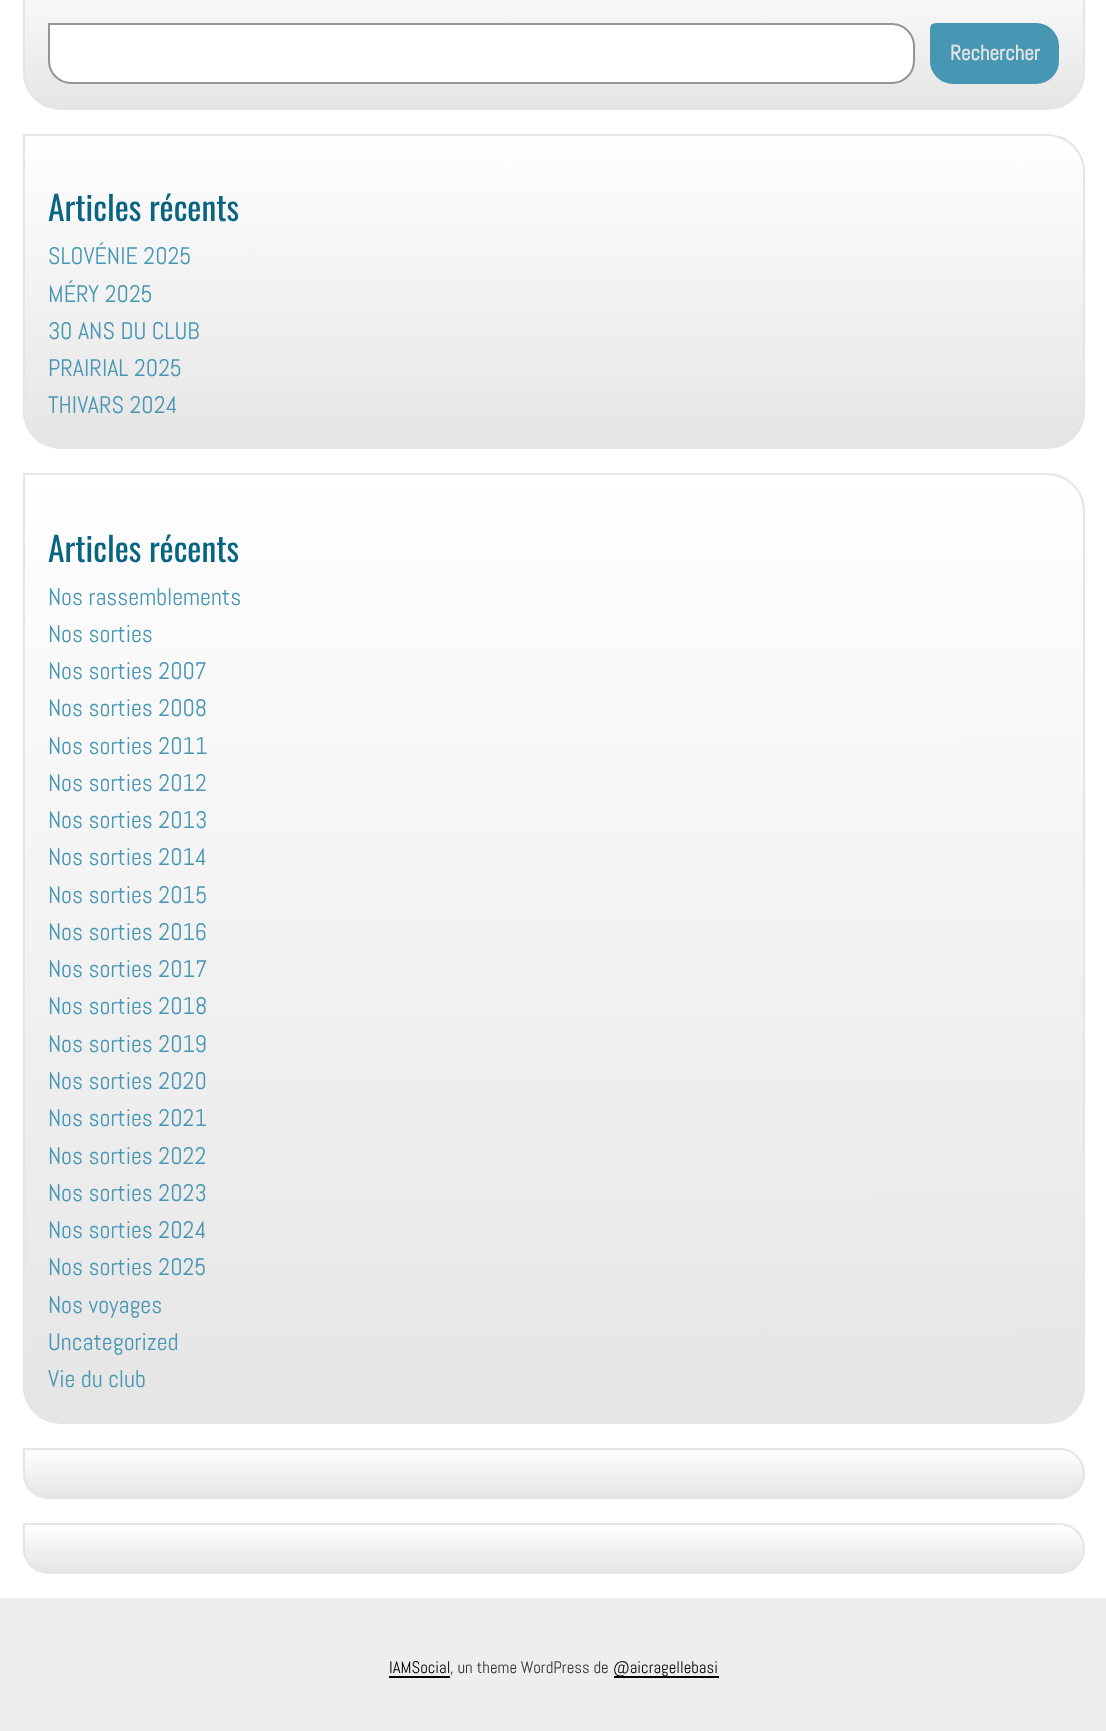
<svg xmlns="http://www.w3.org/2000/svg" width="1106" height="1731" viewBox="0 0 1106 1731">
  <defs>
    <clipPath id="clip1"><path d="M23-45H1047C1068-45 1085-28 1085-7V72C1085 93 1068 110 1047 110H61C40 110 23 93 23 72Z"/></clipPath>
    <linearGradient id="g1" gradientUnits="userSpaceOnUse" x1="554" y1="-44" x2="554" y2="108"><stop offset="0" stop-color="#fff"/><stop offset="1" stop-color="#e5e5e5"/></linearGradient>
    <clipPath id="clip2"><path d="M23 134H1047C1068 134 1085 151 1085 172V411C1085 432 1068 449 1047 449H61C40 449 23 432 23 411Z"/></clipPath>
    <linearGradient id="g2" gradientUnits="userSpaceOnUse" x1="554" y1="135" x2="554" y2="447"><stop offset="0" stop-color="#fff"/><stop offset="1" stop-color="#e5e5e5"/></linearGradient>
    <clipPath id="clip3"><path d="M23 473H1047C1068 473 1085 490 1085 511V1386C1085 1407 1068 1424 1047 1424H61C40 1424 23 1407 23 1386Z"/></clipPath>
    <linearGradient id="g3" gradientUnits="userSpaceOnUse" x1="553" y1="474" x2="554" y2="1422"><stop offset="0" stop-color="#fff"/><stop offset="1" stop-color="#e5e5e5"/></linearGradient>
    <clipPath id="clip4"><path d="M23 1448H1059.5C1073.5 1448 1085 1459.5 1085 1473.5C1085 1487.5 1073.5 1499 1059.5 1499H48.5C34.5 1499 23 1487.5 23 1473.5Z"/></clipPath>
    <linearGradient id="g4" gradientUnits="userSpaceOnUse" x1="554" y1="1449" x2="554" y2="1497"><stop offset="0" stop-color="#fff"/><stop offset="1" stop-color="#e5e5e5"/></linearGradient>
    <clipPath id="clip5"><path d="M23 1523H1059.5C1073.5 1523 1085 1534.5 1085 1548.5C1085 1562.5 1073.5 1574 1059.5 1574H48.5C34.5 1574 23 1562.5 23 1548.5Z"/></clipPath>
    <linearGradient id="g5" gradientUnits="userSpaceOnUse" x1="554" y1="1524" x2="554" y2="1572"><stop offset="0" stop-color="#fff"/><stop offset="1" stop-color="#e5e5e5"/></linearGradient>
  </defs>
  <rect width="100%" height="100%" fill="#fff"/>
  <g clip-path="url(#clip1)">
    <path d="M23 0h1062v108H23z" fill="url(#g1)"/>
  </g>
  <path d="M24-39H1047C1067.5-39 1084-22.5 1084-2V72C1084 92.5 1067.5 109 1047 109H61C40.5 109 24 92.5 24 72Z" fill="none" stroke="#e5e5e5" stroke-width="2"/>
  <path d="M49 24H892C904 24 914 34 914 46V61C914 73 904 83 892 83H71C59 83 49 73 49 61Z" fill="#fff" stroke="#949494" stroke-width="2"/>
  <path d="M936 24H1036C1048 24 1058 34 1058 46V61C1058 73 1048 83 1036 83H953C941 83 931 73 931 61V29C931 26 933 24 936 24Z" fill="#4796b3" stroke="#4796b3" stroke-width="2"/>
  <g clip-path="url(#clip2)">
    <path d="M23 135h1062v312H23z" fill="url(#g2)"/>
  </g>
  <path d="M24 135H1047C1067.5 135 1084 151.5 1084 172V411C1084 431.5 1067.5 448 1047 448H61C40.5 448 24 431.5 24 411Z" fill="none" stroke="#e5e5e5" stroke-width="2"/>
  <g clip-path="url(#clip3)">
    <path d="M23 474h1062v948H23z" fill="url(#g3)"/>
  </g>
  <path d="M24 474H1047C1067.5 474 1084 490.5 1084 511V1386C1084 1406.5 1067.5 1423 1047 1423H61C40.5 1423 24 1406.5 24 1386Z" fill="none" stroke="#e5e5e5" stroke-width="2"/>
  <g clip-path="url(#clip4)">
    <path d="M23 1449h1062v48H23z" fill="url(#g4)"/>
  </g>
  <path d="M24 1449H1059.5C1073 1449 1084 1460 1084 1473.5C1084 1487 1073 1498 1059.5 1498H48.5C35 1498 24 1487 24 1473.5Z" fill="none" stroke="#e5e5e5" stroke-width="2"/>
  <g clip-path="url(#clip5)">
    <path d="M23 1524h1062v48H23z" fill="url(#g5)"/>
  </g>
  <path d="M24 1524H1059.5C1073 1524 1084 1535 1084 1548.5C1084 1562 1073 1573 1059.5 1573H48.5C35 1573 24 1562 24 1548.5Z" fill="none" stroke="#e5e5e5" stroke-width="2"/>
  <path d="M0 1598h1106v133H0z" fill="#eee"/>
  <path d="M389 1676h61v2H389z" fill="#000"/>
  <path d="M614 1676h105v2H614z" fill="#000"/>
  <text x="950" y="60" font-family="Abel" font-size="21" font-weight="bold" fill="#e5e5e5">Rechercher</text>
  <text x="48" y="221" font-family="Oswald" font-size="33.5" fill="#096484">Articles récents</text>
  <g font-family="Abel" font-size="24" fill="#4796b3">
    <text x="48" y="264">SLOVÉNIE 2025</text>
    <text x="48" y="302">MÉRY 2025</text>
    <text x="48" y="339">30 ANS DU CLUB</text>
    <text x="48" y="376">PRAIRIAL 2025</text>
    <text x="48" y="413">THIVARS 2024</text>
  </g>
  <text x="48" y="562" font-family="Oswald" font-size="33.5" fill="#096484">Articles récents</text>
  <g font-family="Abel" font-size="24" fill="#4796b3">
    <text x="48" y="605">Nos rassemblements</text>
    <text x="48" y="642">Nos sorties</text>
    <text x="48" y="679">Nos sorties 2007</text>
    <text x="48" y="716">Nos sorties 2008</text>
    <text x="48" y="754">Nos sorties 2011</text>
    <text x="48" y="791">Nos sorties 2012</text>
    <text x="48" y="828">Nos sorties 2013</text>
    <text x="48" y="865">Nos sorties 2014</text>
    <text x="48" y="903">Nos sorties 2015</text>
    <text x="48" y="940">Nos sorties 2016</text>
    <text x="48" y="977">Nos sorties 2017</text>
    <text x="48" y="1014">Nos sorties 2018</text>
    <text x="48" y="1052">Nos sorties 2019</text>
    <text x="48" y="1089">Nos sorties 2020</text>
    <text x="48" y="1126">Nos sorties 2021</text>
    <text x="48" y="1164">Nos sorties 2022</text>
    <text x="48" y="1201">Nos sorties 2023</text>
    <text x="48" y="1238">Nos sorties 2024</text>
    <text x="48" y="1275">Nos sorties 2025</text>
    <text x="48" y="1313">Nos voyages</text>
    <text x="48" y="1350">Uncategorized</text>
    <text x="48" y="1387">Vie du club</text>
  </g>
  <text x="389" y="1673" font-family="Abel" font-size="16.75" fill="#000">IAMSocial</text>
  <text x="450" y="1673" font-family="Abel" font-size="16.75" fill="#333">, un theme WordPress de</text>
  <text x="613" y="1673" font-family="Abel" font-size="16.75" fill="#000">@aicragellebasi</text>
</svg>
